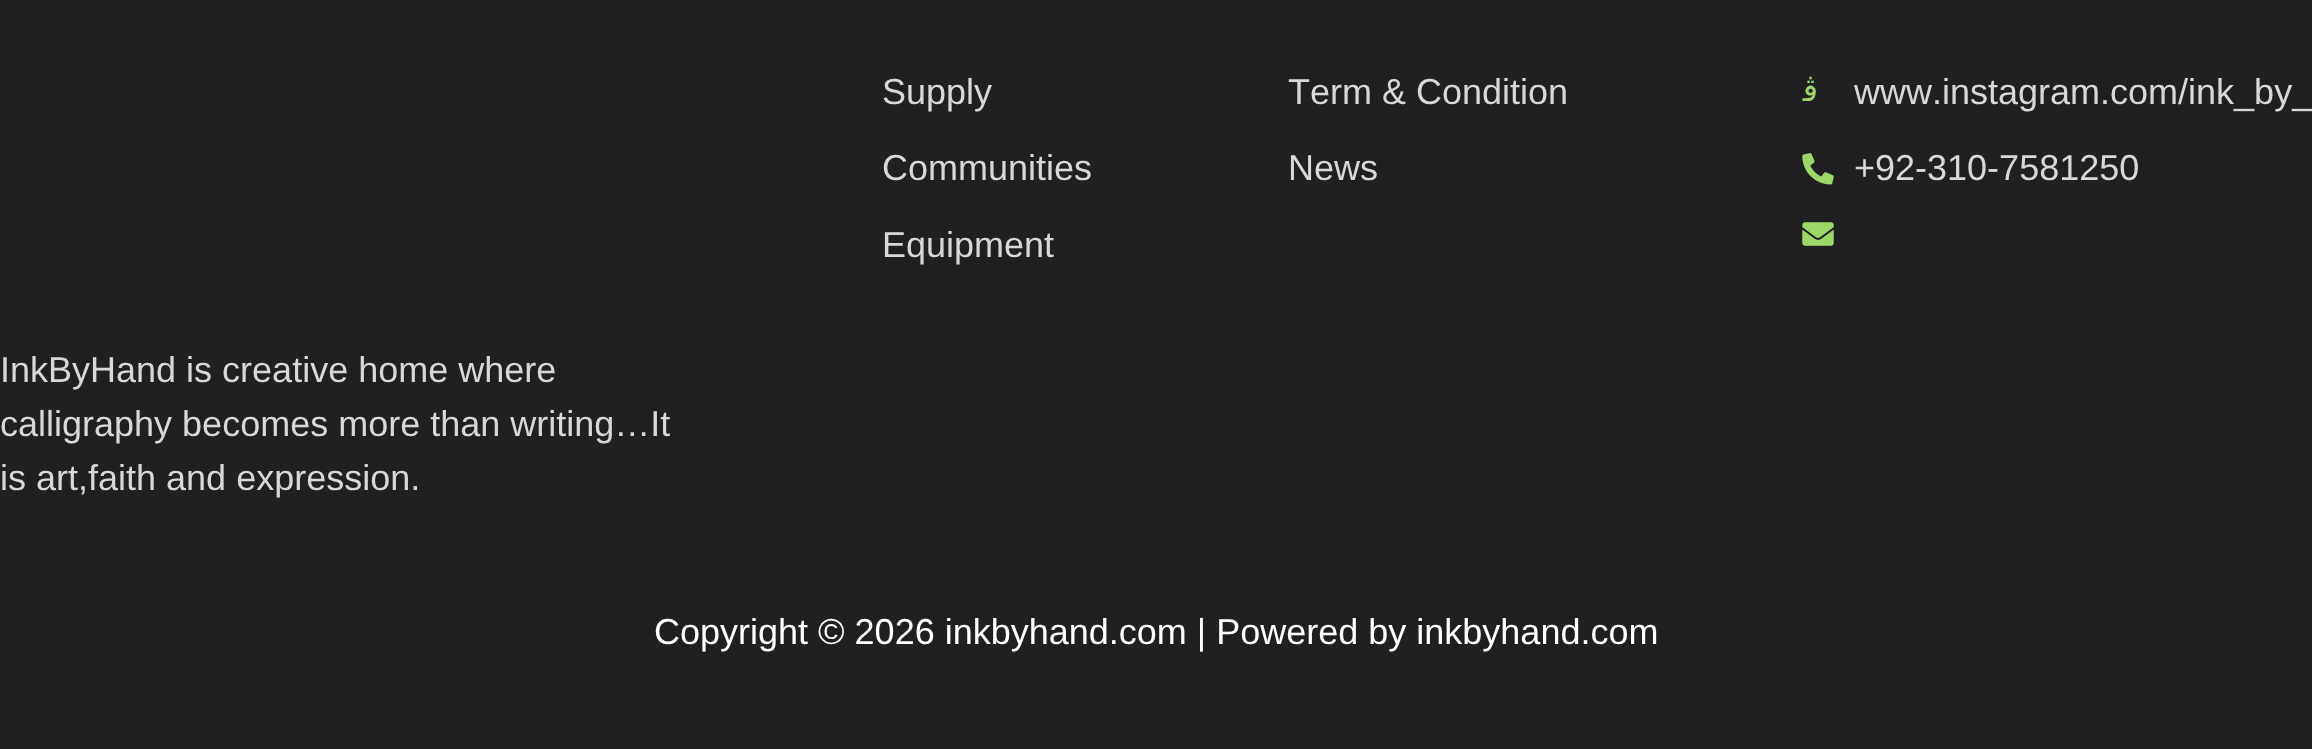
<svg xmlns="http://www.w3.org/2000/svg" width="2312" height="749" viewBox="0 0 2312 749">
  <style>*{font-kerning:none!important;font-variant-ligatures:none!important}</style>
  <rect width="100%" height="100%" fill="#202020"/>
  <image x="1802" y="153" width="32" height="32" href="img/1.png"/>
  <image x="1802" y="222" width="32" height="24" href="img/2.png"/>
  <g font-family="Liberation Sans" font-size="36" fill="#d8d8d8">
    <text x="882" y="104">Supply</text>
    <text x="882" y="180">Communities</text>
    <text x="882" y="257">Equipment</text>
    <text x="1288" y="104">Term &amp; Condition</text>
    <text x="1288" y="180">News</text>
  </g>
  <text x="1818" y="101" font-family="DejaVu Sans" font-size="32" direction="rtl" fill="#9cd769">ﭬ</text>
  <g font-family="Liberation Sans" font-size="36" fill="#d8d8d8">
    <text x="1854" y="104">www.instagram.com/ink_by_</text>
    <text x="1854" y="180">+92-310-7581250</text>
    <text x="0" y="382">InkByHand is creative home where</text>
    <text x="0" y="436">calligraphy becomes more than writing…It</text>
    <text x="0" y="490">is art,faith and expression.</text>
  </g>
  <text x="654" y="644" font-family="Liberation Sans" font-size="36" fill="#fff">Copyright © 2026 inkbyhand.com | Powered by inkbyhand.com</text>
</svg>
